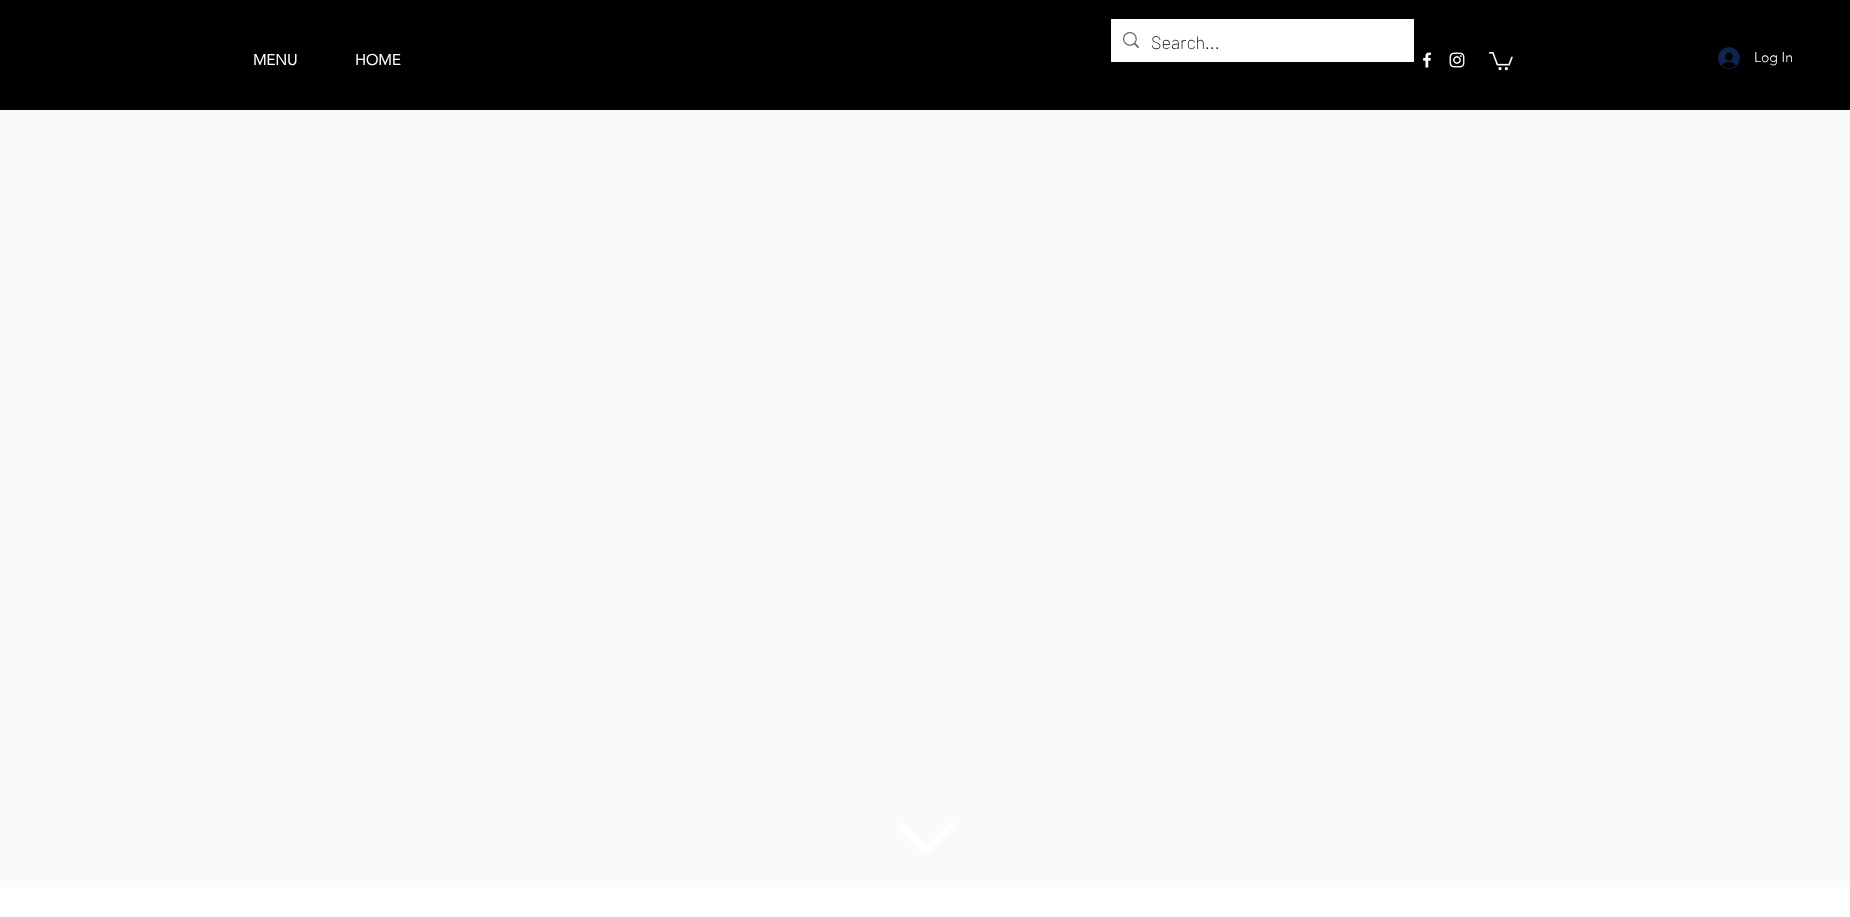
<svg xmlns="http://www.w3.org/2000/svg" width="1850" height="917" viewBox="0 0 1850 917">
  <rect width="100%" height="100%" fill="#fff"/>
  <path d="M0 0h1850v110H0z" fill="#000"/>
  <path d="M1111 19h303v43H1111z" fill="#fff"/>
  <image x="1123" y="32" width="16" height="17" href="img/1.png"/>
  <image x="1423" y="52" width="9" height="16" href="img/2.png"/>
  <image x="1449" y="52" width="16" height="16" href="img/3.png"/>
  <image x="1489" y="52" width="24" height="19" href="img/4.png"/>
  <image x="1718" y="47" width="22" height="22" href="img/5.png"/>
  <path d="M0 110h1850v777H0z" fill="#fafafa"/>
  <path d="M949 823L926 846L903 823C902 822 899 822 898 823C897 824 897 827 898 828L923 854C925 855 927 855 928 854L954 828C955 827 955 825 954 823C953 822 951 822 949 823Z" fill="#fff"/>
  <text x="1151" y="49" font-family="Barlow" font-size="18" font-weight="200" fill="#000">Search...</text>
  <g font-family="'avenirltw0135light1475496'" font-size="15" font-weight="bold" fill="#fffffe">
    <text x="253" y="65">MENU</text>
    <text x="355" y="65">HOME</text>
  </g>
  <text x="1754" y="62" font-family="'avenirltw0135light1475496'" font-size="14" font-weight="300" fill="#fffffe">Log In</text>
</svg>
